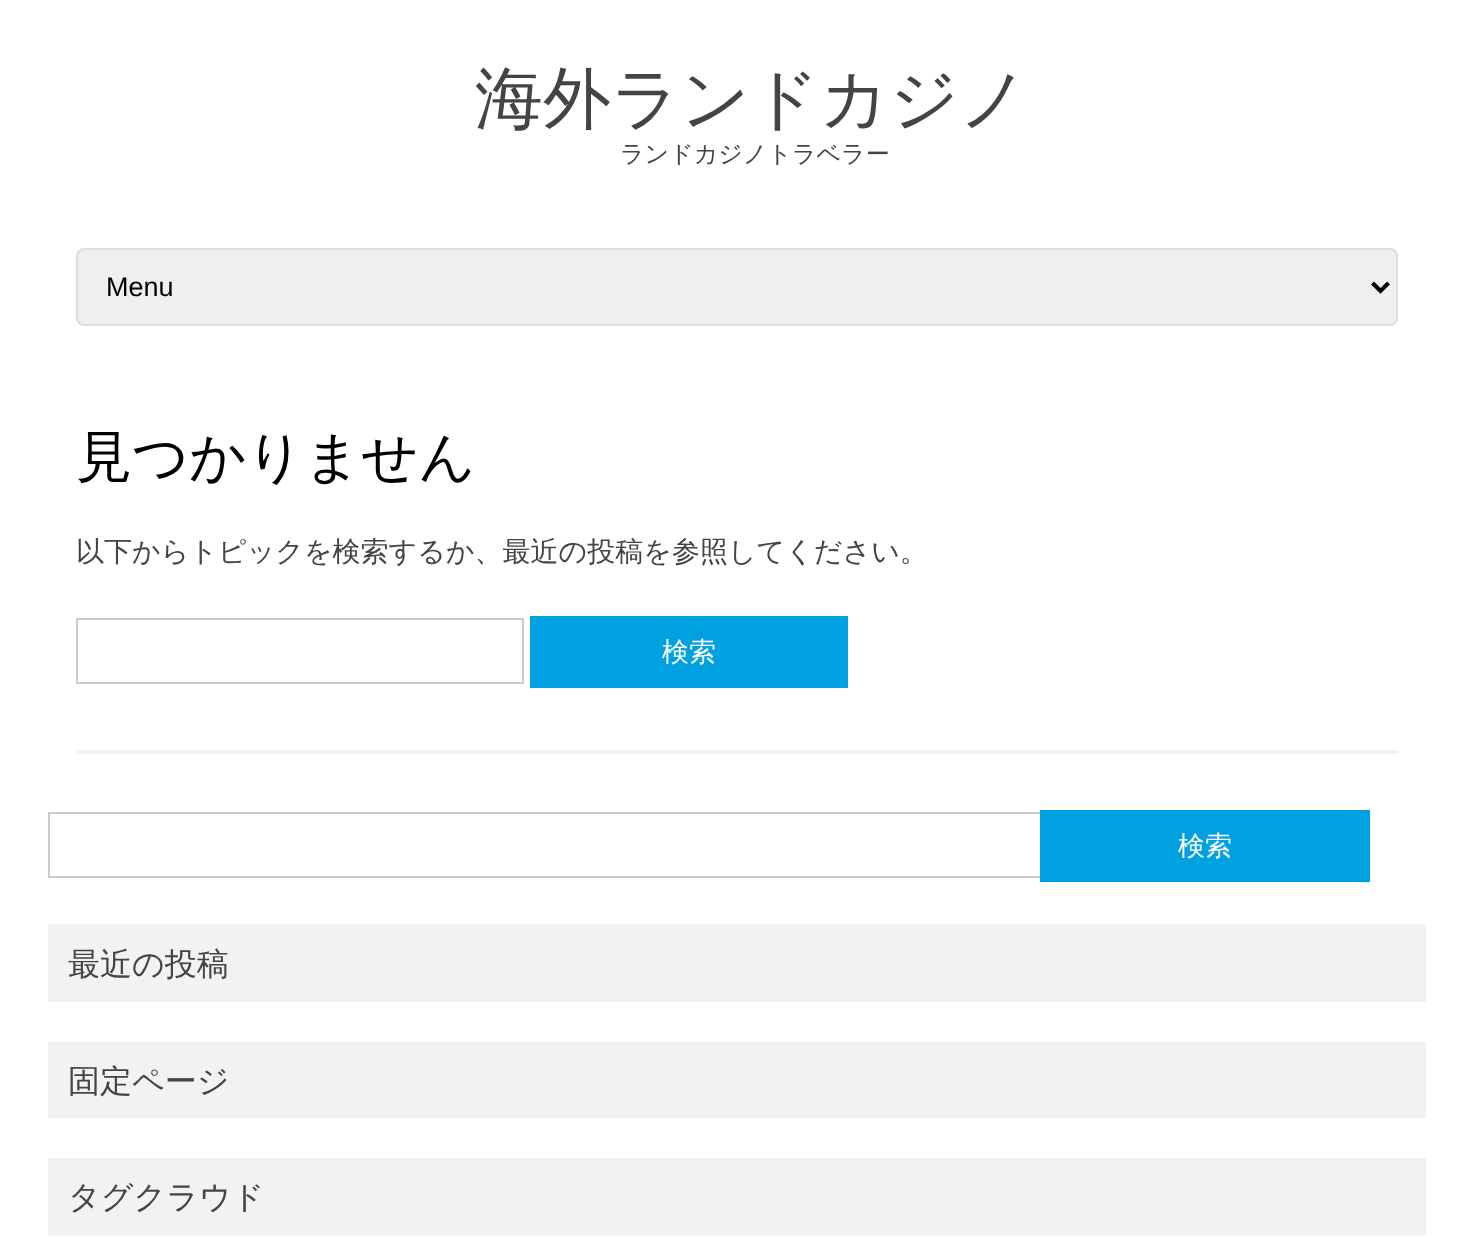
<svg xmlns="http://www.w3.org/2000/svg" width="1473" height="1237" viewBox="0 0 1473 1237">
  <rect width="100%" height="100%" fill="#fff"/>
  <rect x="77" y="249" width="1320" height="76" rx="7" fill="#efefef" stroke="#ddd" stroke-width="2"/>
  <path d="M1372.5 283L1380.5 291L1388.5 283" fill="none" stroke="#000" stroke-width="4"/>
  <path d="M76 750h1322v4H76z" fill="#f3f3f3"/>
  <path d="M77 619h446v64H77z" fill="none" stroke="#ccc" stroke-width="2"/>
  <path d="M530 616h318v72H530z" fill="#00a1e0"/>
  <path d="M49 813h992v64H49z" fill="none" stroke="#ccc" stroke-width="2"/>
  <path d="M1040 810h330v72H1040z" fill="#00a1e0"/>
  <path d="M48 924h1378v78H48z" fill="#f2f2f2"/>
  <path d="M48 1042h1378v76H48z" fill="#f2f2f2"/>
  <path d="M48 1158h1378v78H48z" fill="#f2f2f2"/>
  <text x="475" y="122" font-family="WenQuanYi Zen Hei" font-size="68" font-weight="500" fill="#444">海外ランドカジノ</text>
  <text x="620" y="162" font-family="WenQuanYi Zen Hei" font-size="24" font-weight="500" fill="#444">ランドカジノトラベラー</text>
  <text x="106" y="296" font-family="Liberation Sans" font-size="27" fill="#000">Menu</text>
  <text x="76" y="476" font-family="WenQuanYi Zen Hei" font-size="56" font-weight="500" fill="#000">見つかりません</text>
  <text x="76" y="561" font-family="WenQuanYi Zen Hei" font-size="28" font-weight="500" fill="#444">以下からトピックを検索するか、最近の投稿を参照してください。</text>
  <g font-family="WenQuanYi Zen Hei" font-size="27" font-weight="500" fill="#fff">
    <text x="662" y="661">検索</text>
    <text x="1178" y="855">検索</text>
  </g>
  <g font-family="WenQuanYi Zen Hei" font-size="32" font-weight="500" fill="#444">
    <text x="68" y="975">最近の投稿</text>
    <text x="68" y="1092">固定ページ</text>
    <text x="68" y="1208">タグクラウド</text>
  </g>
</svg>
